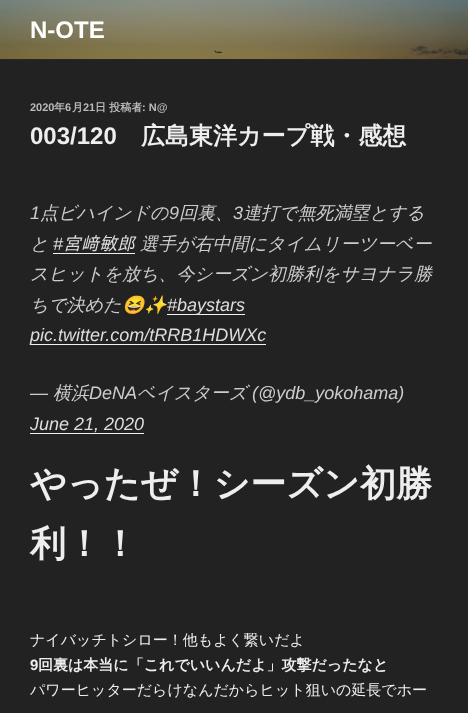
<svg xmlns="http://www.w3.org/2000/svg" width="468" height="713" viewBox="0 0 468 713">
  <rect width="100%" height="100%" fill="#222"/>
  <path d="M0 59h468v1H0z" fill="#262626"/>
  <image x="0" y="0" width="468" height="59" href="img/1.png"/>
  <path d="M53 253h82v1H53z" fill="#f0f0f0"/>
  <path d="M167 314h78v1H167z" fill="#f0f0f0"/>
  <path d="M30 344h236v1H30z" fill="#f0f0f0"/>
  <path d="M30 433h114v1H30z" fill="#f0f0f0"/>
  <text x="30" y="38" font-family="Liberation Sans" font-size="24" font-weight="bold" fill="#fff">N-OTE</text>
  <text x="30" y="111" font-family="Liberation Sans" font-size="11" font-weight="bold" fill="#bbb">2020</text>
  <text x="54" y="111" font-family="WenQuanYi Zen Hei" font-size="11" font-weight="bold" fill="#bbb">年</text>
  <text x="65" y="111" font-family="Liberation Sans" font-size="11" font-weight="bold" fill="#bbb">6</text>
  <text x="72" y="111" font-family="WenQuanYi Zen Hei" font-size="11" font-weight="bold" fill="#bbb">月</text>
  <text x="83" y="111" font-family="Liberation Sans" font-size="11" font-weight="bold" fill="#bbb">21</text>
  <text x="95" y="111" font-family="WenQuanYi Zen Hei" font-size="11" font-weight="bold" fill="#bbb">日 投稿者</text>
  <text x="142" y="111" font-family="Liberation Sans" font-size="11" font-weight="bold" fill="#bbb">: N@</text>
  <text x="30" y="144" font-family="Liberation Sans" font-size="24" font-weight="bold" fill="#eee">003/120</text>
  <text x="141" y="144" font-family="WenQuanYi Zen Hei" font-size="24" font-weight="bold" fill="#eee">広島東洋カープ戦・感想</text>
  <text x="30" y="219" font-family="Liberation Sans" font-size="18" font-style="italic" fill="#ccc">1</text>
  <text x="40" y="219" font-family="WenQuanYi Zen Hei" font-size="18" font-weight="500" font-style="italic" fill="#ccc">点ビハインドの</text>
  <text x="169" y="219" font-family="Liberation Sans" font-size="18" font-style="italic" fill="#ccc">9</text>
  <text x="179" y="219" font-family="WenQuanYi Zen Hei" font-size="18" font-weight="500" font-style="italic" fill="#ccc">回裏、</text>
  <text x="233" y="219" font-family="Liberation Sans" font-size="18" font-style="italic" fill="#ccc">3</text>
  <g font-family="WenQuanYi Zen Hei" font-size="18" font-weight="500" font-style="italic" fill="#ccc">
    <text x="243" y="219">連打で無死満塁とする</text>
    <text x="30" y="250">と</text>
  </g>
  <text x="53" y="250" font-family="Liberation Sans" font-size="18" font-style="italic" fill="#ddd">#</text>
  <text x="63" y="250" font-family="IPAPGothic" font-size="18" font-style="italic" fill="#ddd">宮﨑敏郎</text>
  <g font-family="WenQuanYi Zen Hei" font-size="18" font-weight="500" font-style="italic" fill="#ccc">
    <text x="140" y="250">選手が右中間にタイムリーツーベー</text>
    <text x="30" y="280">スヒットを放ち、今シーズン初勝利をサヨナラ勝</text>
    <text x="30" y="311">ちで決めた</text>
  </g>
  <text x="122" y="311" font-family="Noto Color Emoji" font-size="18" font-style="italic" fill="#ccc">😆✨</text>
  <g font-family="Liberation Sans" font-size="18" font-style="italic" fill="#ddd">
    <text x="167" y="311">#baystars</text>
    <text x="30" y="341">pic.twitter.com/tRRB1HDWXc</text>
  </g>
  <text x="30" y="399" font-family="Liberation Sans" font-size="18" font-style="italic" fill="#ccc">—</text>
  <text x="53" y="399" font-family="WenQuanYi Zen Hei" font-size="18" font-weight="500" font-style="italic" fill="#ccc">横浜</text>
  <text x="89" y="399" font-family="Liberation Sans" font-size="18" font-style="italic" fill="#ccc">DeNA</text>
  <text x="137" y="399" font-family="WenQuanYi Zen Hei" font-size="18" font-weight="500" font-style="italic" fill="#ccc">ベイスターズ</text>
  <text x="252" y="399" font-family="Liberation Sans" font-size="18" font-style="italic" fill="#ccc">(@ydb_yokohama)</text>
  <text x="30" y="430" font-family="Liberation Sans" font-size="18" font-style="italic" fill="#ddd">June 21, 2020</text>
  <g font-family="WenQuanYi Zen Hei" font-size="36" font-weight="bold" fill="#eee">
    <text x="30" y="496">やったぜ！シーズン初勝</text>
    <text x="30" y="556">利！！</text>
  </g>
  <text x="30" y="645" font-family="WenQuanYi Zen Hei" font-size="15" font-weight="500" fill="#eee">ナイバッチトシロー！他もよく繋いだよ</text>
  <text x="30" y="670" font-family="Liberation Sans" font-size="15" font-weight="bold" fill="#eee">9</text>
  <text x="38" y="670" font-family="WenQuanYi Zen Hei" font-size="15" font-weight="bold" fill="#eee">回裏は本当に「これでいいんだよ」攻撃だったなと</text>
  <text x="30" y="695" font-family="WenQuanYi Zen Hei" font-size="15" font-weight="500" fill="#eee">パワーヒッターだらけなんだからヒット狙いの延長でホー</text>
</svg>
